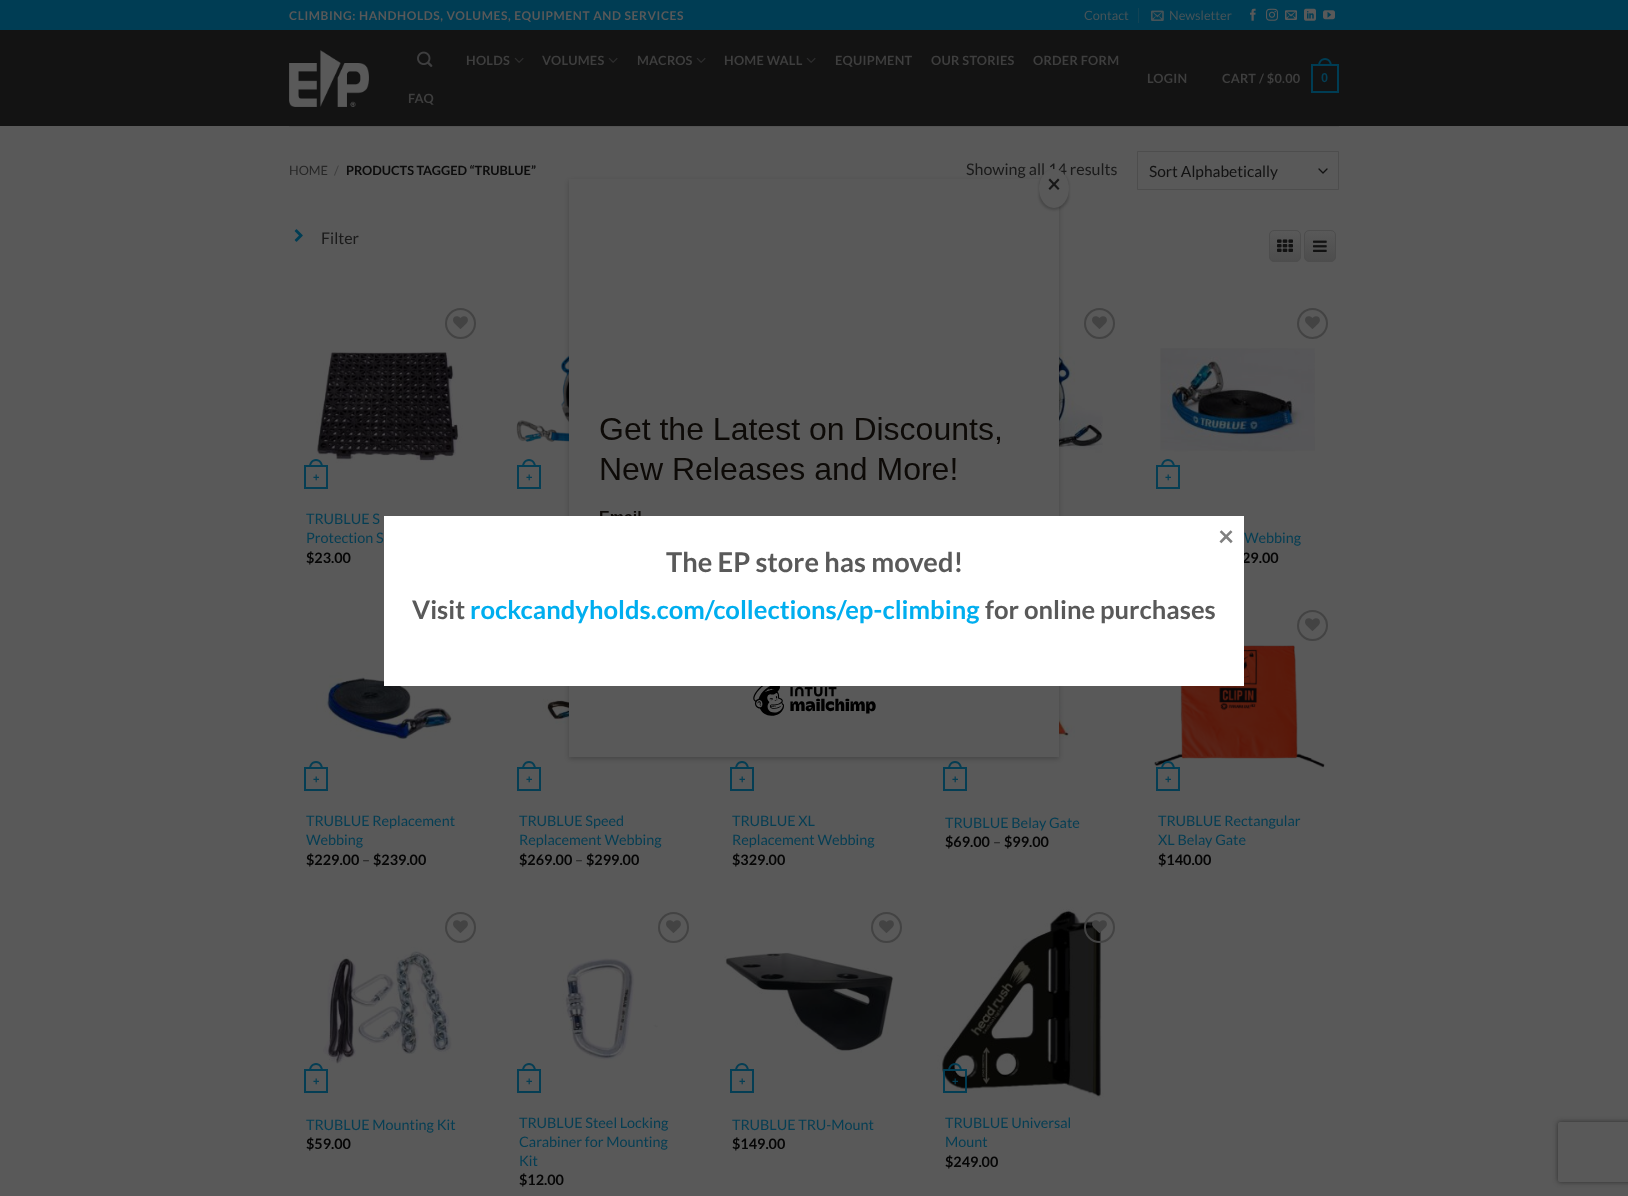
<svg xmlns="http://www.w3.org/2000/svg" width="1628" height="1196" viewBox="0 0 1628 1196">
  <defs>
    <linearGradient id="g1" gradientUnits="userSpaceOnUse" x1="1285" y1="230" x2="1285" y2="262"><stop offset="0" stop-color="#595959"/><stop offset="1" stop-color="#4d4d4d"/></linearGradient>
    <linearGradient id="g2" gradientUnits="userSpaceOnUse" x1="1320" y1="230" x2="1320" y2="262"><stop offset="0" stop-color="#595959"/><stop offset="1" stop-color="#4d4d4d"/></linearGradient>
    <clipPath id="clip1"><path d="M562 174H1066V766H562ZM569 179H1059V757H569Z" clip-rule="evenodd"/></clipPath>
    <clipPath id="clip2"><path d="M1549 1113H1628V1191H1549ZM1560 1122H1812C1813 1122 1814 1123 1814 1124V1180C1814 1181 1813 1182 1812 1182H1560C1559 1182 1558 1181 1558 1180V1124C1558 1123 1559 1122 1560 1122Z" clip-rule="evenodd"/></clipPath>
  </defs>
  <rect width="100%" height="100%" fill="#595959"/>
  <path d="M0 0h1628v30H0z" fill="#003d54"/>
  <path d="M1138 8h1v15H1138z" fill="#124355"/>
  <image x="1151" y="10" width="13" height="11" href="img/1.png"/>
  <image x="1250" y="8" width="6" height="13" href="img/2.png"/>
  <image x="1266" y="8" width="12" height="13" href="img/3.png"/>
  <image x="1285" y="10" width="12" height="10" href="img/4.png"/>
  <image x="1304" y="8" width="12" height="13" href="img/5.png"/>
  <image x="1323" y="10" width="12" height="10" href="img/6.png"/>
  <path d="M0 30h1628v96H0z" fill="#131313"/>
  <image x="289" y="50" width="80" height="57" href="img/7.png"/>
  <image x="417" y="51" width="16" height="16" href="img/8.png"/>
  <image x="514" y="57" width="10" height="6" href="img/9.png"/>
  <image x="608" y="57" width="10" height="6" href="img/9.png"/>
  <image x="696" y="57" width="10" height="6" href="img/9.png"/>
  <image x="806" y="57" width="10" height="6" href="img/9.png"/>
  <path d="M1312 65h26v27H1312z" fill="none" stroke="#003d54" stroke-width="2"/>
  <path d="M1325 58C1329.5 58 1332 62 1332 66H1318C1318 62 1320.5 58 1325 58ZM1325 60C1328.5 60 1330 63 1330 66H1320C1320 63 1321.5 60 1325 60Z" fill="#003d54" fill-rule="evenodd"/>
  <path d="M289 126h1050v1H289z" fill="#535353"/>
  <path d="M1319 169L1323 173L1327 169" fill="none" stroke="#121212" stroke-width="1.3" stroke-linecap="round" stroke-linejoin="round"/>
  <path d="M1137.5 151.5h201v38H1137.5z" fill="none" stroke="#4d4d4d"/>
  <image x="294" y="229" width="9" height="13" href="img/10.png"/>
  <rect x="1269.5" y="230.5" width="31" height="31" rx="4.5" fill="url(#g1)" stroke="#4d4d4d"/>
  <image x="1277" y="239" width="16" height="13" href="img/11.png"/>
  <rect x="1304.5" y="230.5" width="31" height="31" rx="4.5" fill="url(#g2)" stroke="#4d4d4d"/>
  <image x="1313" y="240" width="14" height="12" href="img/12.png"/>
  <circle cx="1099.5" cy="323.5" r="14.5" fill="none" stroke="#434343" stroke-width="2"/>
  <image x="1092" y="316" width="15" height="13" href="img/13.png"/>
  <image x="1059" y="342" width="44" height="114" href="img/14.png"/>
  <circle cx="460.5" cy="323.5" r="14.5" fill="none" stroke="#434343" stroke-width="2"/>
  <image x="453" y="316" width="15" height="13" href="img/13.png"/>
  <image x="316" y="350" width="147" height="113" href="img/15.png"/>
  <path d="M305 466h22v22H305z" fill="none" stroke="#053e54" stroke-width="2"/>
  <path d="M316 459C320.5 459 323 463 323 467H309C309 463 311.5 459 316 459ZM316 461C319.5 461 321 464 321 467H311C311 464 312.5 461 316 461Z" fill="#053e54" fill-rule="evenodd"/>
  <image x="516" y="345" width="53" height="98" href="img/16.png"/>
  <path d="M518 466h22v22H518z" fill="none" stroke="#053e54" stroke-width="2"/>
  <path d="M529 459C533.5 459 536 463 536 467H522C522 463 524.5 459 529 459ZM529 461C532.5 461 534 464 534 467H524C524 464 525.5 461 529 461Z" fill="#053e54" fill-rule="evenodd"/>
  <circle cx="1312.5" cy="323.5" r="14.5" fill="none" stroke="#434343" stroke-width="2"/>
  <image x="1305" y="316" width="15" height="13" href="img/13.png"/>
  <image x="1160" y="348" width="155" height="104" href="img/17.png"/>
  <path d="M1157 466h22v22H1157z" fill="none" stroke="#053e54" stroke-width="2"/>
  <path d="M1168 459C1172.5 459 1175 463 1175 467H1161C1161 463 1163.5 459 1168 459ZM1168 461C1171.5 461 1173 464 1173 467H1163C1163 464 1164.5 461 1168 461Z" fill="#053e54" fill-rule="evenodd"/>
  <image x="316" y="672" width="137" height="67" href="img/18.png"/>
  <path d="M305 768h22v22H305z" fill="none" stroke="#053e54" stroke-width="2"/>
  <path d="M316 761C320.5 761 323 765 323 769H309C309 765 311.5 761 316 761ZM316 763C319.5 763 321 766 321 769H311C311 766 312.5 763 316 763Z" fill="#053e54" fill-rule="evenodd"/>
  <image x="542" y="686" width="27" height="39" href="img/19.png"/>
  <path d="M518 768h22v22H518z" fill="none" stroke="#053e54" stroke-width="2"/>
  <path d="M529 761C533.5 761 536 765 536 769H522C522 765 524.5 761 529 761ZM529 763C532.5 763 534 766 534 769H524C524 766 525.5 763 529 763Z" fill="#053e54" fill-rule="evenodd"/>
  <path d="M731 768h22v22H731z" fill="none" stroke="#053e54" stroke-width="2"/>
  <path d="M742 761C746.5 761 749 765 749 769H735C735 765 737.5 761 742 761ZM742 763C745.5 763 747 766 747 769H737C737 766 738.5 763 742 763Z" fill="#053e54" fill-rule="evenodd"/>
  <image x="1059" y="686" width="16" height="53" href="img/20.png"/>
  <path d="M944 768h22v22H944z" fill="none" stroke="#053e54" stroke-width="2"/>
  <path d="M955 761C959.5 761 962 765 962 769H948C948 765 950.5 761 955 761ZM955 763C958.5 763 960 766 960 769H950C950 766 951.5 763 955 763Z" fill="#053e54" fill-rule="evenodd"/>
  <circle cx="1312.5" cy="625.5" r="14.5" fill="none" stroke="#434343" stroke-width="2"/>
  <image x="1305" y="618" width="15" height="13" href="img/13.png"/>
  <image x="1154" y="645" width="171" height="123" href="img/21.png"/>
  <path d="M1157 768h22v22H1157z" fill="none" stroke="#053e54" stroke-width="2"/>
  <path d="M1168 761C1172.5 761 1175 765 1175 769H1161C1161 765 1163.5 761 1168 761ZM1168 763C1171.5 763 1173 766 1173 769H1163C1163 766 1164.5 763 1168 763Z" fill="#003d54f2" fill-rule="evenodd"/>
  <circle cx="460.5" cy="927.5" r="14.5" fill="none" stroke="#434343" stroke-width="2"/>
  <image x="453" y="920" width="15" height="13" href="img/13.png"/>
  <image x="323" y="947" width="129" height="118" href="img/22.png"/>
  <path d="M305 1070h22v22H305z" fill="none" stroke="#053e54" stroke-width="2"/>
  <path d="M316 1063C320.5 1063 323 1067 323 1071H309C309 1067 311.5 1063 316 1063ZM316 1065C319.5 1065 321 1068 321 1071H311C311 1068 312.5 1065 316 1065Z" fill="#053e54" fill-rule="evenodd"/>
  <circle cx="673.5" cy="927.5" r="14.5" fill="none" stroke="#434343" stroke-width="2"/>
  <image x="666" y="920" width="15" height="13" href="img/13.png"/>
  <image x="562" y="958" width="96" height="103" href="img/23.png"/>
  <path d="M518 1070h22v22H518z" fill="none" stroke="#053e54" stroke-width="2"/>
  <path d="M529 1063C533.5 1063 536 1067 536 1071H522C522 1067 524.5 1063 529 1063ZM529 1065C532.5 1065 534 1068 534 1071H524C524 1068 525.5 1065 529 1065Z" fill="#053e54" fill-rule="evenodd"/>
  <circle cx="886.5" cy="927.5" r="14.5" fill="none" stroke="#434343" stroke-width="2"/>
  <image x="879" y="920" width="15" height="13" href="img/13.png"/>
  <image x="724" y="952" width="170" height="102" href="img/24.png"/>
  <path d="M731 1070h22v22H731z" fill="none" stroke="#053e54" stroke-width="2"/>
  <path d="M742 1063C746.5 1063 749 1067 749 1071H735C735 1067 737.5 1063 742 1063ZM742 1065C745.5 1065 747 1068 747 1071H737C737 1068 738.5 1065 742 1065Z" fill="#053e54" fill-rule="evenodd"/>
  <image x="937" y="907" width="167" height="193" href="img/25.png"/>
  <circle cx="1099.5" cy="927.5" r="14.5" fill="none" stroke="#434343" stroke-width="2"/>
  <image x="1092" y="920" width="15" height="13" href="img/26.png"/>
  <path d="M944 1070h22v22H944z" fill="none" stroke="#003d54f2" stroke-width="2"/>
  <path d="M955 1063C959.5 1063 962 1067 962 1071H948C948 1067 950.5 1063 955 1063ZM955 1065C958.5 1065 960 1068 960 1071H950C950 1068 951.5 1065 955 1065Z" fill="#003d54f2" fill-rule="evenodd"/>
  <rect x="1039" y="171" width="30" height="39" rx="15" fill="#00000033" filter="blur(1px)"/>
  <g clip-path="url(#clip1)">
    <path d="M569 181h490v578H569z" fill="#00000033" filter="blur(2px)"/>
  </g>
  <image x="569" y="308" width="490" height="432" href="img/27.png"/>
  <g clip-path="url(#clip2)">
    <rect x="1558" y="1122" width="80" height="60" rx="2" fill="#2d2d2d" filter="blur(2.5px)"/>
  </g>
  <text x="289" y="20" font-family="Lato" font-size="12" font-weight="bold" letter-spacing="0.6" fill="#595959">CLIMBING: HANDHOLDS, VOLUMES, EQUIPMENT AND SERVICES</text>
  <g font-family="Lato" font-size="12.75" fill="#475458">
    <text x="1084" y="20">Contact</text>
    <text x="1169" y="20">Newsletter</text>
  </g>
  <g font-family="Lato" font-size="12.75" font-weight="bold" letter-spacing="0.25" fill="#3e3e3e">
    <text x="466" y="65">HOLDS</text>
    <text x="542" y="65">VOLUMES</text>
    <text x="637" y="65">MACROS</text>
    <text x="724" y="65">HOME WALL</text>
    <text x="835" y="65">EQUIPMENT</text>
    <text x="931" y="65">OUR STORIES</text>
    <text x="1033" y="65">ORDER FORM</text>
    <text x="408" y="103">FAQ</text>
    <text x="1147" y="83">LOGIN</text>
    <text x="1222" y="83">CART / $0.00</text>
  </g>
  <text x="1321" y="82" font-family="Liberation Sans" font-size="12.75" font-weight="bold" letter-spacing="0.25" fill="#053e54">0</text>
  <text x="289" y="175" font-family="Lato" font-size="12.75" fill="#272727">HOME</text>
  <text x="334" y="175" font-family="Lato" font-size="12.75" fill="#3e3e3e">/</text>
  <text x="346" y="175" font-family="Lato" font-size="12.75" font-weight="bold" fill="#0c0c0c">PRODUCTS TAGGED “TRUBLUE”</text>
  <text x="966" y="175" font-family="Lato" font-size="16" fill="#1a1a1a">Showing all 14 results</text>
  <text x="1149" y="177" font-family="Lato" font-size="15.5" fill="#121212">Sort Alphabetically</text>
  <text x="321" y="244" font-family="Lato" font-size="16" fill="#1a1a1a">Filter</text>
  <text x="313" y="481" font-family="Liberation Sans" font-size="11" font-weight="bold" fill="#053e54">+</text>
  <g font-family="Lato" font-size="14.4" fill="#053e54">
    <text x="306" y="524">TRUBLUE S</text>
    <text x="306" y="543">Protection S</text>
  </g>
  <text x="306" y="563" font-family="Lato" font-size="14.4" font-weight="bold" fill="#060606">$23.00</text>
  <g font-family="Liberation Sans" font-size="11" font-weight="bold" fill="#053e54">
    <text x="526" y="481">+</text>
    <text x="1165" y="481">+</text>
  </g>
  <text x="1244" y="543" font-family="Lato" font-size="14.4" fill="#053e54">Webbing</text>
  <text x="1242" y="563" font-family="Lato" font-size="14.4" font-weight="bold" fill="#060606">29.00</text>
  <text x="313" y="783" font-family="Liberation Sans" font-size="11" font-weight="bold" fill="#053e54">+</text>
  <g font-family="Lato" font-size="14.4" fill="#053e54">
    <text x="306" y="826">TRUBLUE Replacement</text>
    <text x="306" y="845">Webbing</text>
  </g>
  <text x="306" y="865" font-family="Lato" font-size="14.4" font-weight="bold" fill="#060606">$229.00</text>
  <text x="362" y="865" font-family="Lato" font-size="14.4" fill="#1a1a1a">–</text>
  <text x="373" y="865" font-family="Lato" font-size="14.4" font-weight="bold" fill="#060606">$239.00</text>
  <text x="526" y="783" font-family="Liberation Sans" font-size="11" font-weight="bold" fill="#053e54">+</text>
  <g font-family="Lato" font-size="14.4" fill="#053e54">
    <text x="519" y="826">TRUBLUE Speed</text>
    <text x="519" y="845">Replacement Webbing</text>
  </g>
  <text x="519" y="865" font-family="Lato" font-size="14.4" font-weight="bold" fill="#060606">$269.00</text>
  <text x="575" y="865" font-family="Lato" font-size="14.4" fill="#1a1a1a">–</text>
  <text x="586" y="865" font-family="Lato" font-size="14.4" font-weight="bold" fill="#060606">$299.00</text>
  <text x="739" y="783" font-family="Liberation Sans" font-size="11" font-weight="bold" fill="#053e54">+</text>
  <g font-family="Lato" font-size="14.4" fill="#053e54">
    <text x="732" y="826">TRUBLUE XL</text>
    <text x="732" y="845">Replacement Webbing</text>
  </g>
  <text x="732" y="865" font-family="Lato" font-size="14.4" font-weight="bold" fill="#060606">$329.00</text>
  <text x="952" y="783" font-family="Liberation Sans" font-size="11" font-weight="bold" fill="#053e54">+</text>
  <text x="945" y="828" font-family="Lato" font-size="14.4" fill="#053e54">TRUBLUE Belay Gate</text>
  <text x="945" y="847" font-family="Lato" font-size="14.4" font-weight="bold" fill="#060606">$69.00</text>
  <text x="993" y="847" font-family="Lato" font-size="14.4" fill="#1a1a1a">–</text>
  <text x="1004" y="847" font-family="Lato" font-size="14.4" font-weight="bold" fill="#060606">$99.00</text>
  <text x="1165" y="783" font-family="Liberation Sans" font-size="11" font-weight="bold" fill="#053e54">+</text>
  <g font-family="Lato" font-size="14.4" fill="#053e54">
    <text x="1158" y="826">TRUBLUE Rectangular</text>
    <text x="1158" y="845">XL Belay Gate</text>
  </g>
  <text x="1158" y="865" font-family="Lato" font-size="14.4" font-weight="bold" fill="#060606">$140.00</text>
  <text x="313" y="1085" font-family="Liberation Sans" font-size="11" font-weight="bold" fill="#053e54">+</text>
  <text x="306" y="1130" font-family="Lato" font-size="14.4" fill="#053e54">TRUBLUE Mounting Kit</text>
  <text x="306" y="1149" font-family="Lato" font-size="14.4" font-weight="bold" fill="#060606">$59.00</text>
  <text x="526" y="1085" font-family="Liberation Sans" font-size="11" font-weight="bold" fill="#053e54">+</text>
  <g font-family="Lato" font-size="14.4" fill="#053e54">
    <text x="519" y="1128">TRUBLUE Steel Locking</text>
    <text x="519" y="1147">Carabiner for Mounting</text>
    <text x="519" y="1166">Kit</text>
  </g>
  <text x="519" y="1185" font-family="Lato" font-size="14.4" font-weight="bold" fill="#060606">$12.00</text>
  <text x="739" y="1085" font-family="Liberation Sans" font-size="11" font-weight="bold" fill="#053e54">+</text>
  <text x="732" y="1130" font-family="Lato" font-size="14.4" fill="#053e54">TRUBLUE TRU-Mount</text>
  <text x="732" y="1149" font-family="Lato" font-size="14.4" font-weight="bold" fill="#060606">$149.00</text>
  <text x="952" y="1085" font-family="Liberation Sans" font-size="11" font-weight="bold" fill="#053e54">+</text>
  <g font-family="Lato" font-size="14.4" fill="#053e54">
    <text x="945" y="1128">TRUBLUE Universal</text>
    <text x="945" y="1147">Mount</text>
  </g>
  <text x="945" y="1167" font-family="Lato" font-size="14.4" font-weight="bold" fill="#060606">$249.00</text>
  <ellipse cx="1054" cy="188.5" rx="15" ry="19.5" fill="#595959"/>
  <path d="M1058 178.5L1059.5 180L1050 190L1048.5 188.5Z" fill="#171717"/>
  <path d="M1048.5 180L1050 178.5L1059.5 188.5L1058 190Z" fill="#171717"/>
  <path d="M384 516h860v170H384z" fill="#fff"/>
  <text x="1218" y="546" font-family="Lato" font-size="28" font-weight="bold" fill="#808080">×</text>
  <text x="666" y="572" font-family="Lato" font-size="27.25" font-weight="bold" fill="#595959">The EP store has moved!</text>
  <text x="412" y="619" font-family="Lato" font-size="25.6" font-weight="bold" fill="#595959">Visit</text>
  <text x="470" y="619" font-family="Lato" font-size="25.6" font-weight="bold" fill="#00aeef">rockcandyholds.com/collections/ep-climbing</text>
  <text x="985" y="619" font-family="Lato" font-size="25.6" font-weight="bold" fill="#595959">for online purchases</text>
</svg>
